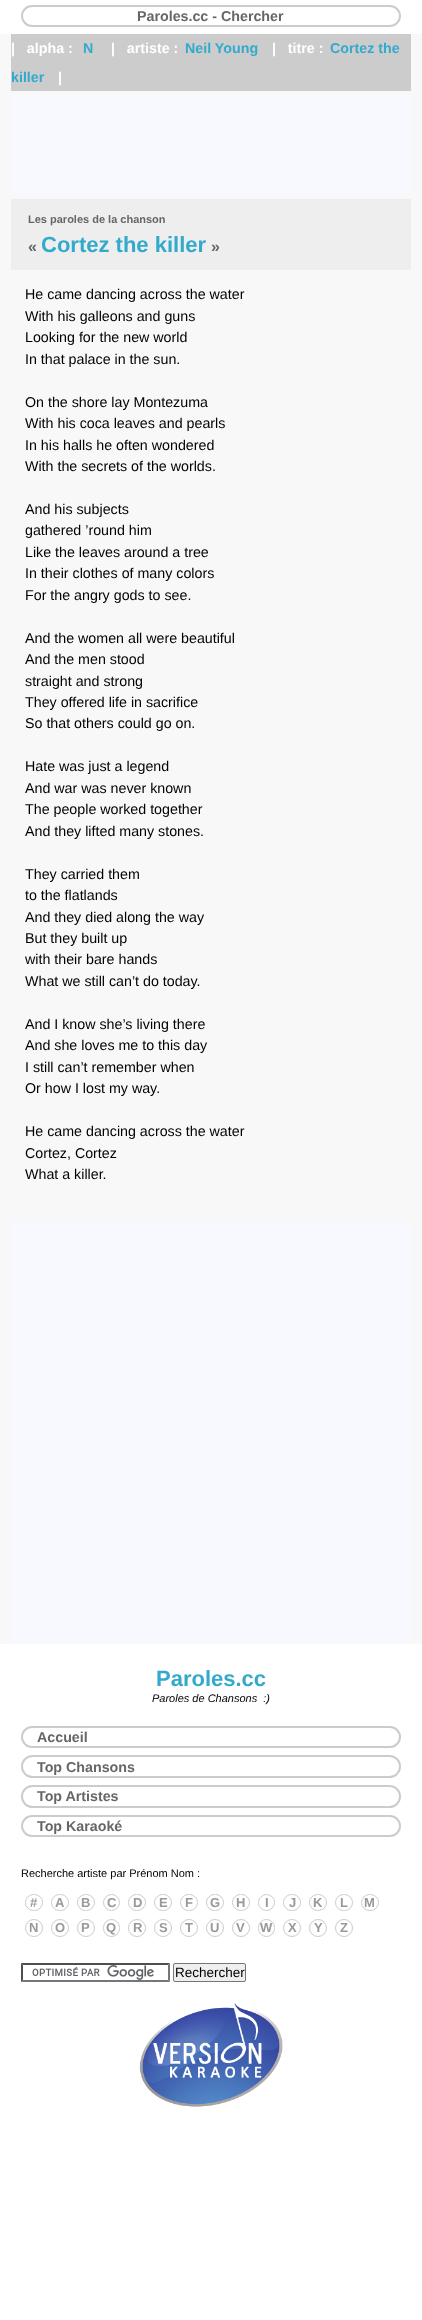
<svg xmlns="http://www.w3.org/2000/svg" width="422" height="2320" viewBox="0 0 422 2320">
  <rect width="100%" height="100%" fill="#fff"/>
  <rect x="22" y="6" width="378" height="20" rx="10" fill="none" stroke="#ccc" stroke-width="2"/>
  <path d="M0 34h422v1610H0z" fill="#f8f8f8"/>
  <path d="M11 34h400v57H11z" fill="#ccc"/>
  <path d="M11 95h400v100H11z" fill="#f8f8ff"/>
  <path d="M11 199h400v71H11z" fill="#eee"/>
  <path d="M11 1222h400v422H11z" fill="#f8f8ff"/>
  <rect x="22" y="1727" width="378" height="20" rx="10" fill="none" stroke="#ccc" stroke-width="2"/>
  <rect x="22" y="1756" width="378" height="21" rx="10.5" fill="none" stroke="#ccc" stroke-width="2"/>
  <rect x="22" y="1786" width="378" height="21" rx="10.5" fill="none" stroke="#ccc" stroke-width="2"/>
  <rect x="22" y="1816" width="378" height="20" rx="10" fill="none" stroke="#ccc" stroke-width="2"/>
  <rect x="25.5" y="1894.5" width="17" height="16" rx="8" fill="none" stroke="#ccc"/>
  <rect x="51.5" y="1894.5" width="17" height="16" rx="8" fill="none" stroke="#ccc"/>
  <rect x="77.5" y="1894.5" width="17" height="16" rx="8" fill="none" stroke="#ccc"/>
  <circle cx="111.5" cy="1902.5" r="8" fill="none" stroke="#ccc"/>
  <rect x="128.5" y="1894.5" width="17" height="16" rx="8" fill="none" stroke="#ccc"/>
  <rect x="154.5" y="1894.5" width="17" height="16" rx="8" fill="none" stroke="#ccc"/>
  <rect x="180.5" y="1894.5" width="17" height="16" rx="8" fill="none" stroke="#ccc"/>
  <rect x="206.5" y="1894.5" width="17" height="16" rx="8" fill="none" stroke="#ccc"/>
  <rect x="232.5" y="1894.5" width="17" height="16" rx="8" fill="none" stroke="#ccc"/>
  <circle cx="266.5" cy="1902.5" r="8" fill="none" stroke="#ccc"/>
  <rect x="283.5" y="1894.5" width="17" height="16" rx="8" fill="none" stroke="#ccc"/>
  <rect x="309.5" y="1894.5" width="17" height="16" rx="8" fill="none" stroke="#ccc"/>
  <rect x="335.5" y="1894.5" width="17" height="16" rx="8" fill="none" stroke="#ccc"/>
  <rect x="361.5" y="1894.5" width="17" height="16" rx="8" fill="none" stroke="#ccc"/>
  <circle cx="34" cy="1928" r="8.5" fill="none" stroke="#ccc"/>
  <circle cx="60" cy="1928" r="8.5" fill="none" stroke="#ccc"/>
  <circle cx="86" cy="1928" r="8.5" fill="none" stroke="#ccc"/>
  <rect x="103.5" y="1919.5" width="16" height="17" rx="8" fill="none" stroke="#ccc"/>
  <circle cx="137" cy="1928" r="8.5" fill="none" stroke="#ccc"/>
  <circle cx="163" cy="1928" r="8.5" fill="none" stroke="#ccc"/>
  <circle cx="189" cy="1928" r="8.5" fill="none" stroke="#ccc"/>
  <circle cx="215" cy="1928" r="8.5" fill="none" stroke="#ccc"/>
  <circle cx="241" cy="1928" r="8.5" fill="none" stroke="#ccc"/>
  <rect x="258.5" y="1919.5" width="16" height="17" rx="8" fill="none" stroke="#ccc"/>
  <circle cx="292" cy="1928" r="8.5" fill="none" stroke="#ccc"/>
  <circle cx="318" cy="1928" r="8.5" fill="none" stroke="#ccc"/>
  <circle cx="344" cy="1928" r="8.5" fill="none" stroke="#ccc"/>
  <image x="32" y="1965" width="122" height="15" href="img/1.png"/>
  <path d="M21 1963H170L168 1965H23Z" fill="#4f4f4f"/>
  <path d="M170 1963V1982L168 1980V1965Z" fill="#767676"/>
  <path d="M170 1982H21L23 1980H168Z" fill="#767676"/>
  <path d="M21 1982V1963L23 1965V1980Z" fill="#4f4f4f"/>
  <rect x="173.5" y="1963.5" width="72" height="18" rx="1.5" fill="#efefef" stroke="#767676"/>
  <image x="139" y="2003" width="144" height="104" href="img/2.png"/>
  <text x="137" y="21" font-family="Liberation Sans" font-size="14.25" font-weight="bold" fill="#666">Paroles.cc - Chercher</text>
  <text x="11" y="53" font-family="Liberation Sans" font-size="14.25" font-weight="bold" fill="#fff" xml:space="preserve">|   alpha :</text>
  <text x="83" y="53" font-family="Liberation Sans" font-size="14.25" font-weight="bold" fill="#3ac">N</text>
  <text x="111" y="53" font-family="Liberation Sans" font-size="14.25" font-weight="bold" fill="#fff" xml:space="preserve">|   artiste :</text>
  <text x="185" y="53" font-family="Liberation Sans" font-size="14.25" font-weight="bold" fill="#3ac">Neil Young</text>
  <text x="272" y="53" font-family="Liberation Sans" font-size="14.25" font-weight="bold" fill="#fff" xml:space="preserve">|   titre :</text>
  <g font-family="Liberation Sans" font-size="14.25" font-weight="bold" fill="#3ac">
    <text x="330" y="53">Cortez the</text>
    <text x="11" y="82">killer</text>
  </g>
  <text x="58" y="82" font-family="Liberation Sans" font-size="14.25" font-weight="bold" fill="#fff">|</text>
  <text x="28" y="223" font-family="Liberation Sans" font-size="11" font-weight="bold" fill="#666">Les paroles de la chanson</text>
  <text x="28" y="252" font-family="Liberation Sans" font-size="16" font-weight="bold" fill="#666">«</text>
  <text x="41" y="252" font-family="Liberation Sans" font-size="22" font-weight="bold" fill="#3ac">Cortez the killer</text>
  <text x="211" y="252" font-family="Liberation Sans" font-size="16" font-weight="bold" fill="#666">»</text>
  <g font-family="Liberation Sans" font-size="14.25" fill="#000">
    <text x="25" y="299">He came dancing across the water</text>
    <text x="25" y="321">With his galleons and guns</text>
    <text x="25" y="342">Looking for the new world</text>
    <text x="25" y="364">In that palace in the sun.</text>
    <text x="25" y="407">On the shore lay Montezuma</text>
    <text x="25" y="428">With his coca leaves and pearls</text>
    <text x="25" y="450">In his halls he often wondered</text>
    <text x="25" y="471">With the secrets of the worlds.</text>
    <text x="25" y="514">And his subjects</text>
    <text x="25" y="535">gathered ’round him</text>
    <text x="25" y="557">Like the leaves around a tree</text>
    <text x="25" y="578">In their clothes of many colors</text>
    <text x="25" y="600">For the angry gods to see.</text>
    <text x="25" y="643">And the women all were beautiful</text>
    <text x="25" y="664">And the men stood</text>
    <text x="25" y="686">straight and strong</text>
    <text x="25" y="707">They offered life in sacrifice</text>
    <text x="25" y="728">So that others could go on.</text>
    <text x="25" y="771">Hate was just a legend</text>
    <text x="25" y="793">And war was never known</text>
    <text x="25" y="814">The people worked together</text>
    <text x="25" y="836">And they lifted many stones.</text>
    <text x="25" y="879">They carried them</text>
    <text x="25" y="900">to the flatlands</text>
    <text x="25" y="922">And they died along the way</text>
    <text x="25" y="943">But they built up</text>
    <text x="25" y="964">with their bare hands</text>
    <text x="25" y="986">What we still can’t do today.</text>
    <text x="25" y="1029">And I know she’s living there</text>
    <text x="25" y="1050">And she loves me to this day</text>
    <text x="25" y="1072">I still can’t remember when</text>
    <text x="25" y="1093">Or how I lost my way.</text>
    <text x="25" y="1136">He came dancing across the water</text>
    <text x="25" y="1158">Cortez, Cortez</text>
    <text x="25" y="1179">What a killer.</text>
  </g>
  <text x="156" y="1686" font-family="Liberation Sans" font-size="22" font-weight="bold" fill="#3ac">Paroles.cc</text>
  <text x="152" y="1702" font-family="Liberation Sans" font-size="11" font-style="italic" fill="#000" xml:space="preserve">Paroles de Chansons  :)</text>
  <g font-family="Liberation Sans" font-size="14.25" font-weight="bold" fill="#666">
    <text x="37" y="1742">Accueil</text>
    <text x="37" y="1772">Top Chansons</text>
    <text x="37" y="1801">Top Artistes</text>
    <text x="37" y="1831">Top Karaoké</text>
  </g>
  <text x="21" y="1877" font-family="Liberation Sans" font-size="11" fill="#000">Recherche artiste par Prénom Nom :</text>
  <g font-family="Liberation Sans" font-size="13" font-weight="bold" fill="#999">
    <text x="30" y="1907">#</text>
    <text x="55" y="1907">A</text>
    <text x="81" y="1907">B</text>
    <text x="107" y="1907">C</text>
    <text x="133" y="1907">D</text>
    <text x="159" y="1907">E</text>
    <text x="185" y="1907">F</text>
    <text x="210" y="1907">G</text>
    <text x="236" y="1907">H</text>
    <text x="265" y="1907">I</text>
    <text x="289" y="1907">J</text>
    <text x="313" y="1907">K</text>
    <text x="340" y="1907">L</text>
    <text x="364" y="1907">M</text>
    <text x="29" y="1932">N</text>
    <text x="55" y="1932">O</text>
    <text x="81" y="1932">P</text>
    <text x="106" y="1932">Q</text>
    <text x="133" y="1932">R</text>
    <text x="159" y="1932">S</text>
    <text x="185" y="1932">T</text>
    <text x="210" y="1932">U</text>
    <text x="236" y="1932">V</text>
    <text x="260" y="1932">W</text>
    <text x="288" y="1932">X</text>
    <text x="314" y="1932">Y</text>
    <text x="340" y="1932">Z</text>
  </g>
  <text x="175" y="1977" font-family="Liberation Sans" font-size="13.5" fill="#000">Rechercher</text>
</svg>
